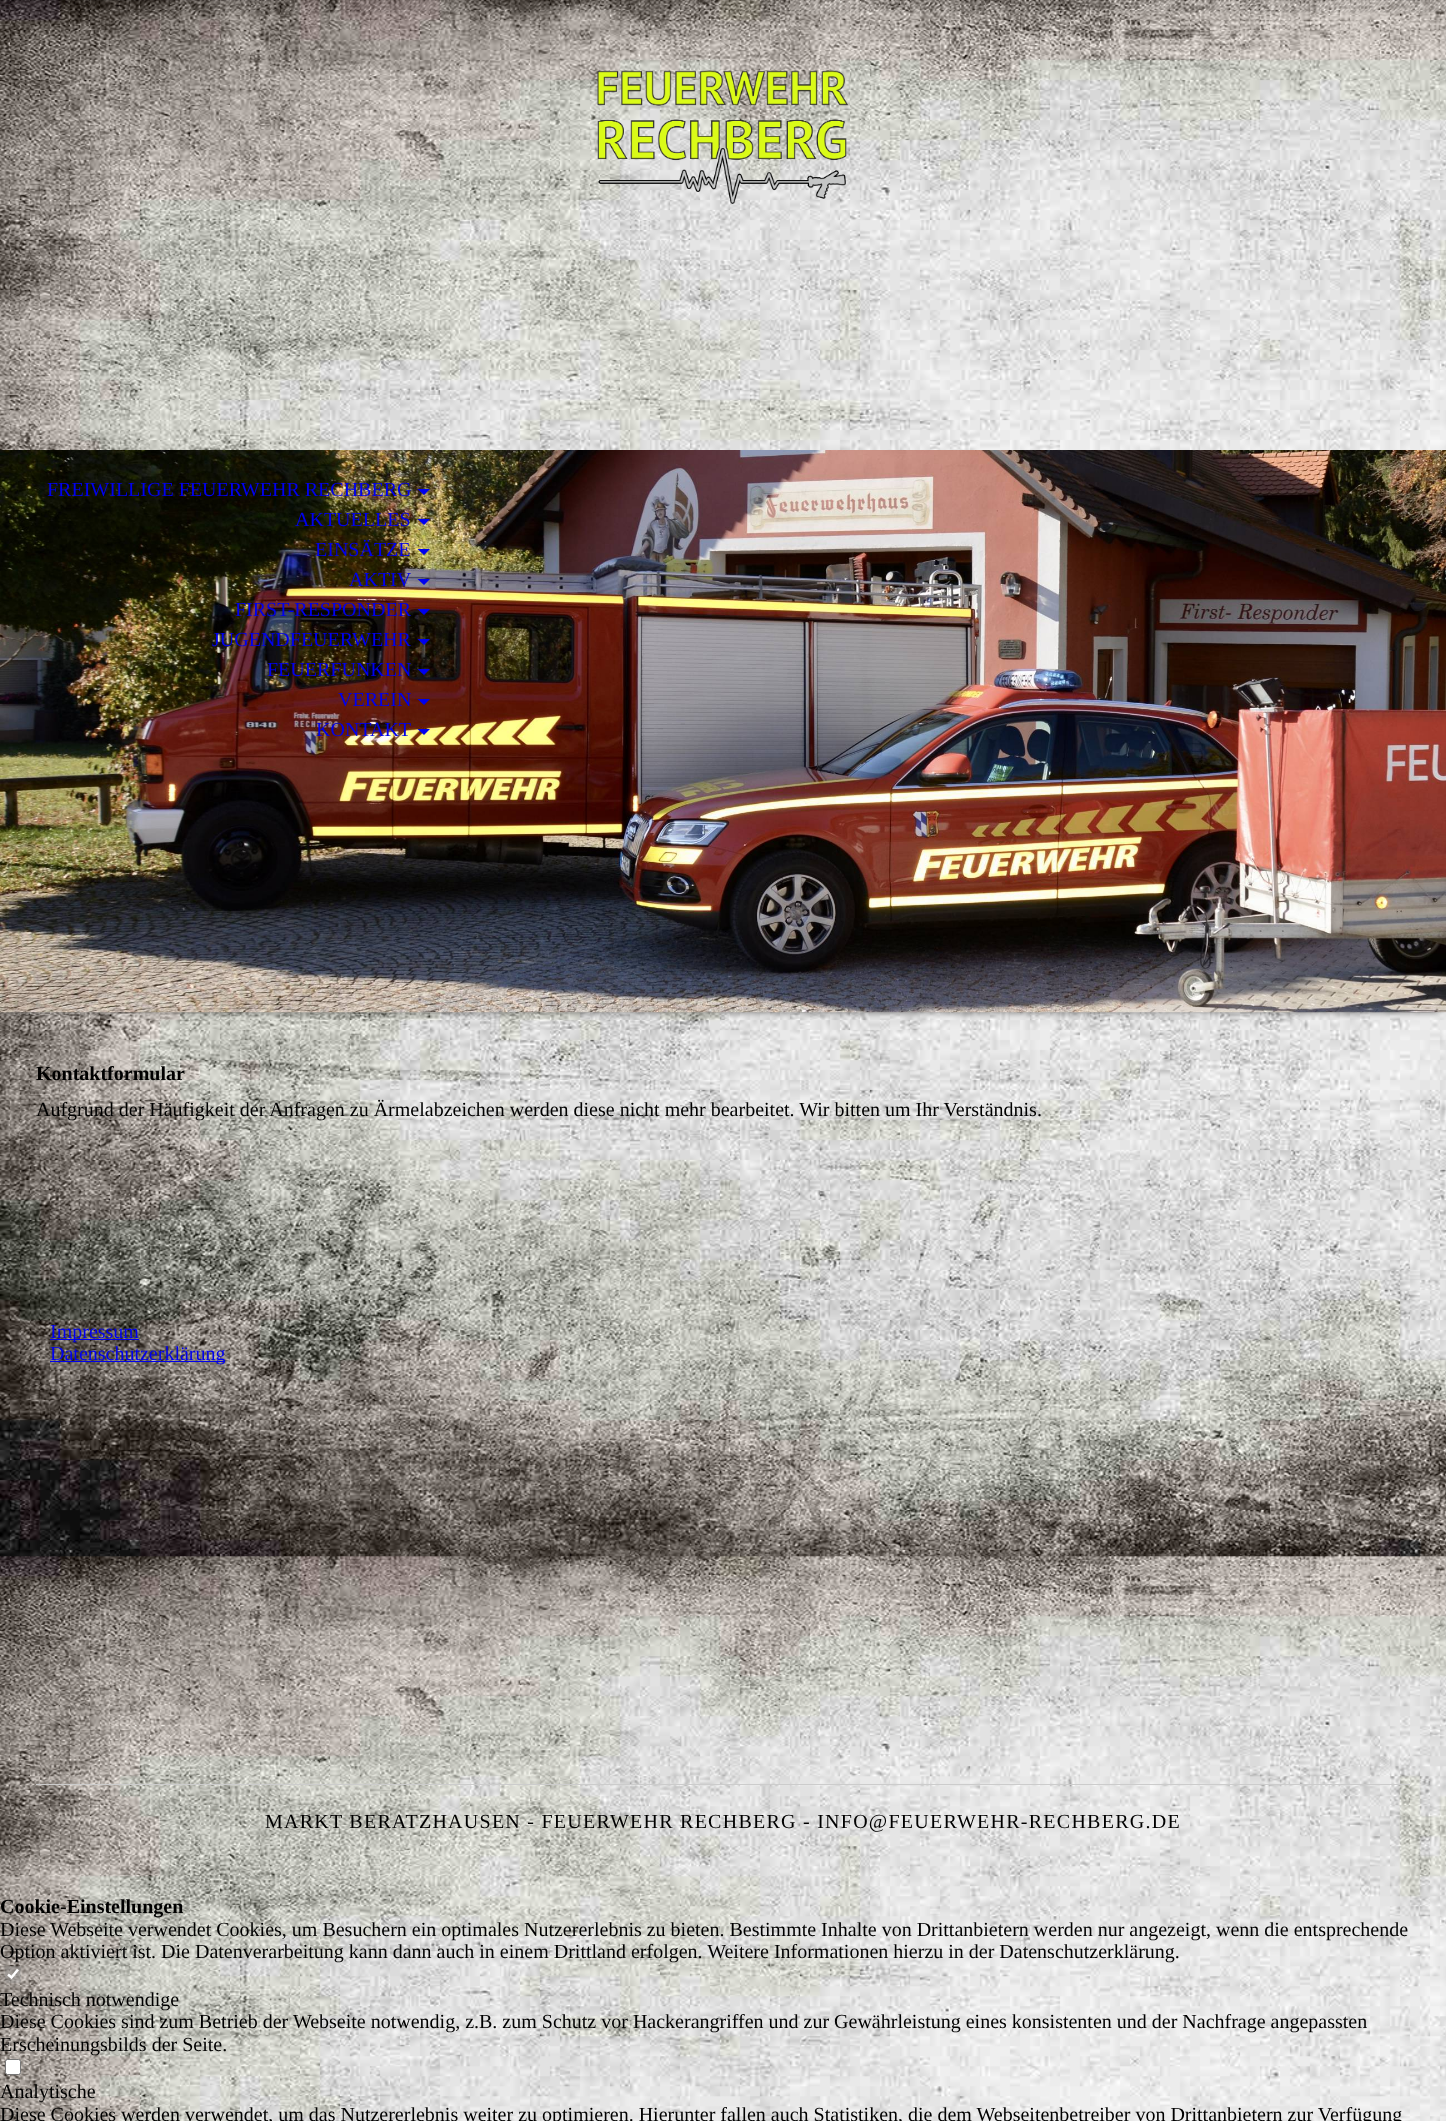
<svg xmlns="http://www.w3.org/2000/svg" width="1446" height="2121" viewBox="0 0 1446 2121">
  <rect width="100%" height="100%" fill="#fff"/>
  <image x="0" y="0" width="1446" height="2121" href="img/1.png"/>
  <image x="0" y="0" width="1446" height="13" href="img/2.png"/>
  <image x="597" y="70" width="251" height="134" href="img/3.png"/>
  <path d="M6 463h1434v550H6z" fill="#00000066" filter="blur(3px)"/>
  <image x="0" y="450" width="1446" height="563" href="img/4.png"/>
  <path d="M417.5 489H430L424 495ZM417.5 519H430L424 525Z" fill="#00e"/>
  <path d="M417.5 549H430L424 555ZM417.5 579H430L424 585Z" fill="#00e"/>
  <path d="M417.5 609H430L424 615ZM417.5 639H430L424 645Z" fill="#00e"/>
  <path d="M417.5 669H430L424 675ZM417.5 699H430L424 705Z" fill="#00e"/>
  <path d="M417.5 729H430L424 735Z" fill="#00e"/>
  <path d="M50 1339h89v1H50z" fill="#00e"/>
  <path d="M50 1361h175v1H50z" fill="#00e"/>
  <path d="M36 1784h1374v1H36z" fill="#ccc"/>
  <rect x="5" y="1966" width="16" height="17" rx="2.5" fill="#7676764d"/>
  <path d="M8 1974.5L11.5 1977.5L18 1969.5" fill="none" stroke="#fff" stroke-width="2.6"/>
  <rect x="5.5" y="2059.5" width="15" height="15" rx="2" fill="#fff" stroke="#767676"/>
  <g font-family="Liberation Serif" font-size="20" fill="#00e">
    <text x="47" y="496">FREIWILLIGE FEUERWEHR RECHBERG</text>
    <text x="295" y="526">AKTUELLES</text>
    <text x="315" y="556">EINSÄTZE</text>
    <text x="349" y="586">AKTIV</text>
    <text x="235" y="616">FIRST-RESPONDER</text>
    <text x="212" y="646">JUGENDFEUERWEHR</text>
    <text x="267" y="676">FEUERFUNKEN</text>
    <text x="338" y="706">VEREIN</text>
    <text x="316" y="736">KONTAKT</text>
  </g>
  <text x="36" y="1080" font-family="Liberation Serif" font-size="20" font-weight="bold" fill="#000">Kontaktformular</text>
  <text x="36" y="1116" font-family="Liberation Serif" font-size="20" fill="#000">Aufgrund der Häufigkeit der Anfragen zu Ärmelabzeichen werden diese nicht mehr bearbeitet. Wir bitten um Ihr Verständnis.</text>
  <g font-family="Liberation Serif" font-size="20" fill="#00e">
    <text x="50" y="1338">Impressum</text>
    <text x="50" y="1360">Datenschutzerklärung</text>
  </g>
  <text x="265" y="1828" font-family="Liberation Serif" font-size="20" letter-spacing="1.25" fill="#000">MARKT BERATZHAUSEN - FEUERWEHR RECHBERG - INFO@FEUERWEHR-RECHBERG.DE</text>
  <text x="0" y="1913" font-family="Liberation Serif" font-size="20" font-weight="bold" fill="#000">Cookie-Einstellungen</text>
  <g font-family="Liberation Serif" font-size="20" fill="#000">
    <text x="0" y="1936">Diese Webseite verwendet Cookies, um Besuchern ein optimales Nutzererlebnis zu bieten. Bestimmte Inhalte von Drittanbietern werden nur angezeigt, wenn die entsprechende</text>
    <text x="0" y="1958">Option aktiviert ist. Die Datenverarbeitung kann dann auch in einem Drittland erfolgen. Weitere Informationen hierzu in der Datenschutzerklärung.</text>
    <text x="0" y="2006">Technisch notwendige</text>
    <text x="0" y="2028">Diese Cookies sind zum Betrieb der Webseite notwendig, z.B. zum Schutz vor Hackerangriffen und zur Gewährleistung eines konsistenten und der Nachfrage angepassten</text>
    <text x="0" y="2051">Erscheinungsbilds der Seite.</text>
    <text x="0" y="2098">Analytische</text>
    <text x="0" y="2121">Diese Cookies werden verwendet, um das Nutzererlebnis weiter zu optimieren. Hierunter fallen auch Statistiken, die dem Webseitenbetreiber von Drittanbietern zur Verfügung</text>
  </g>
</svg>
